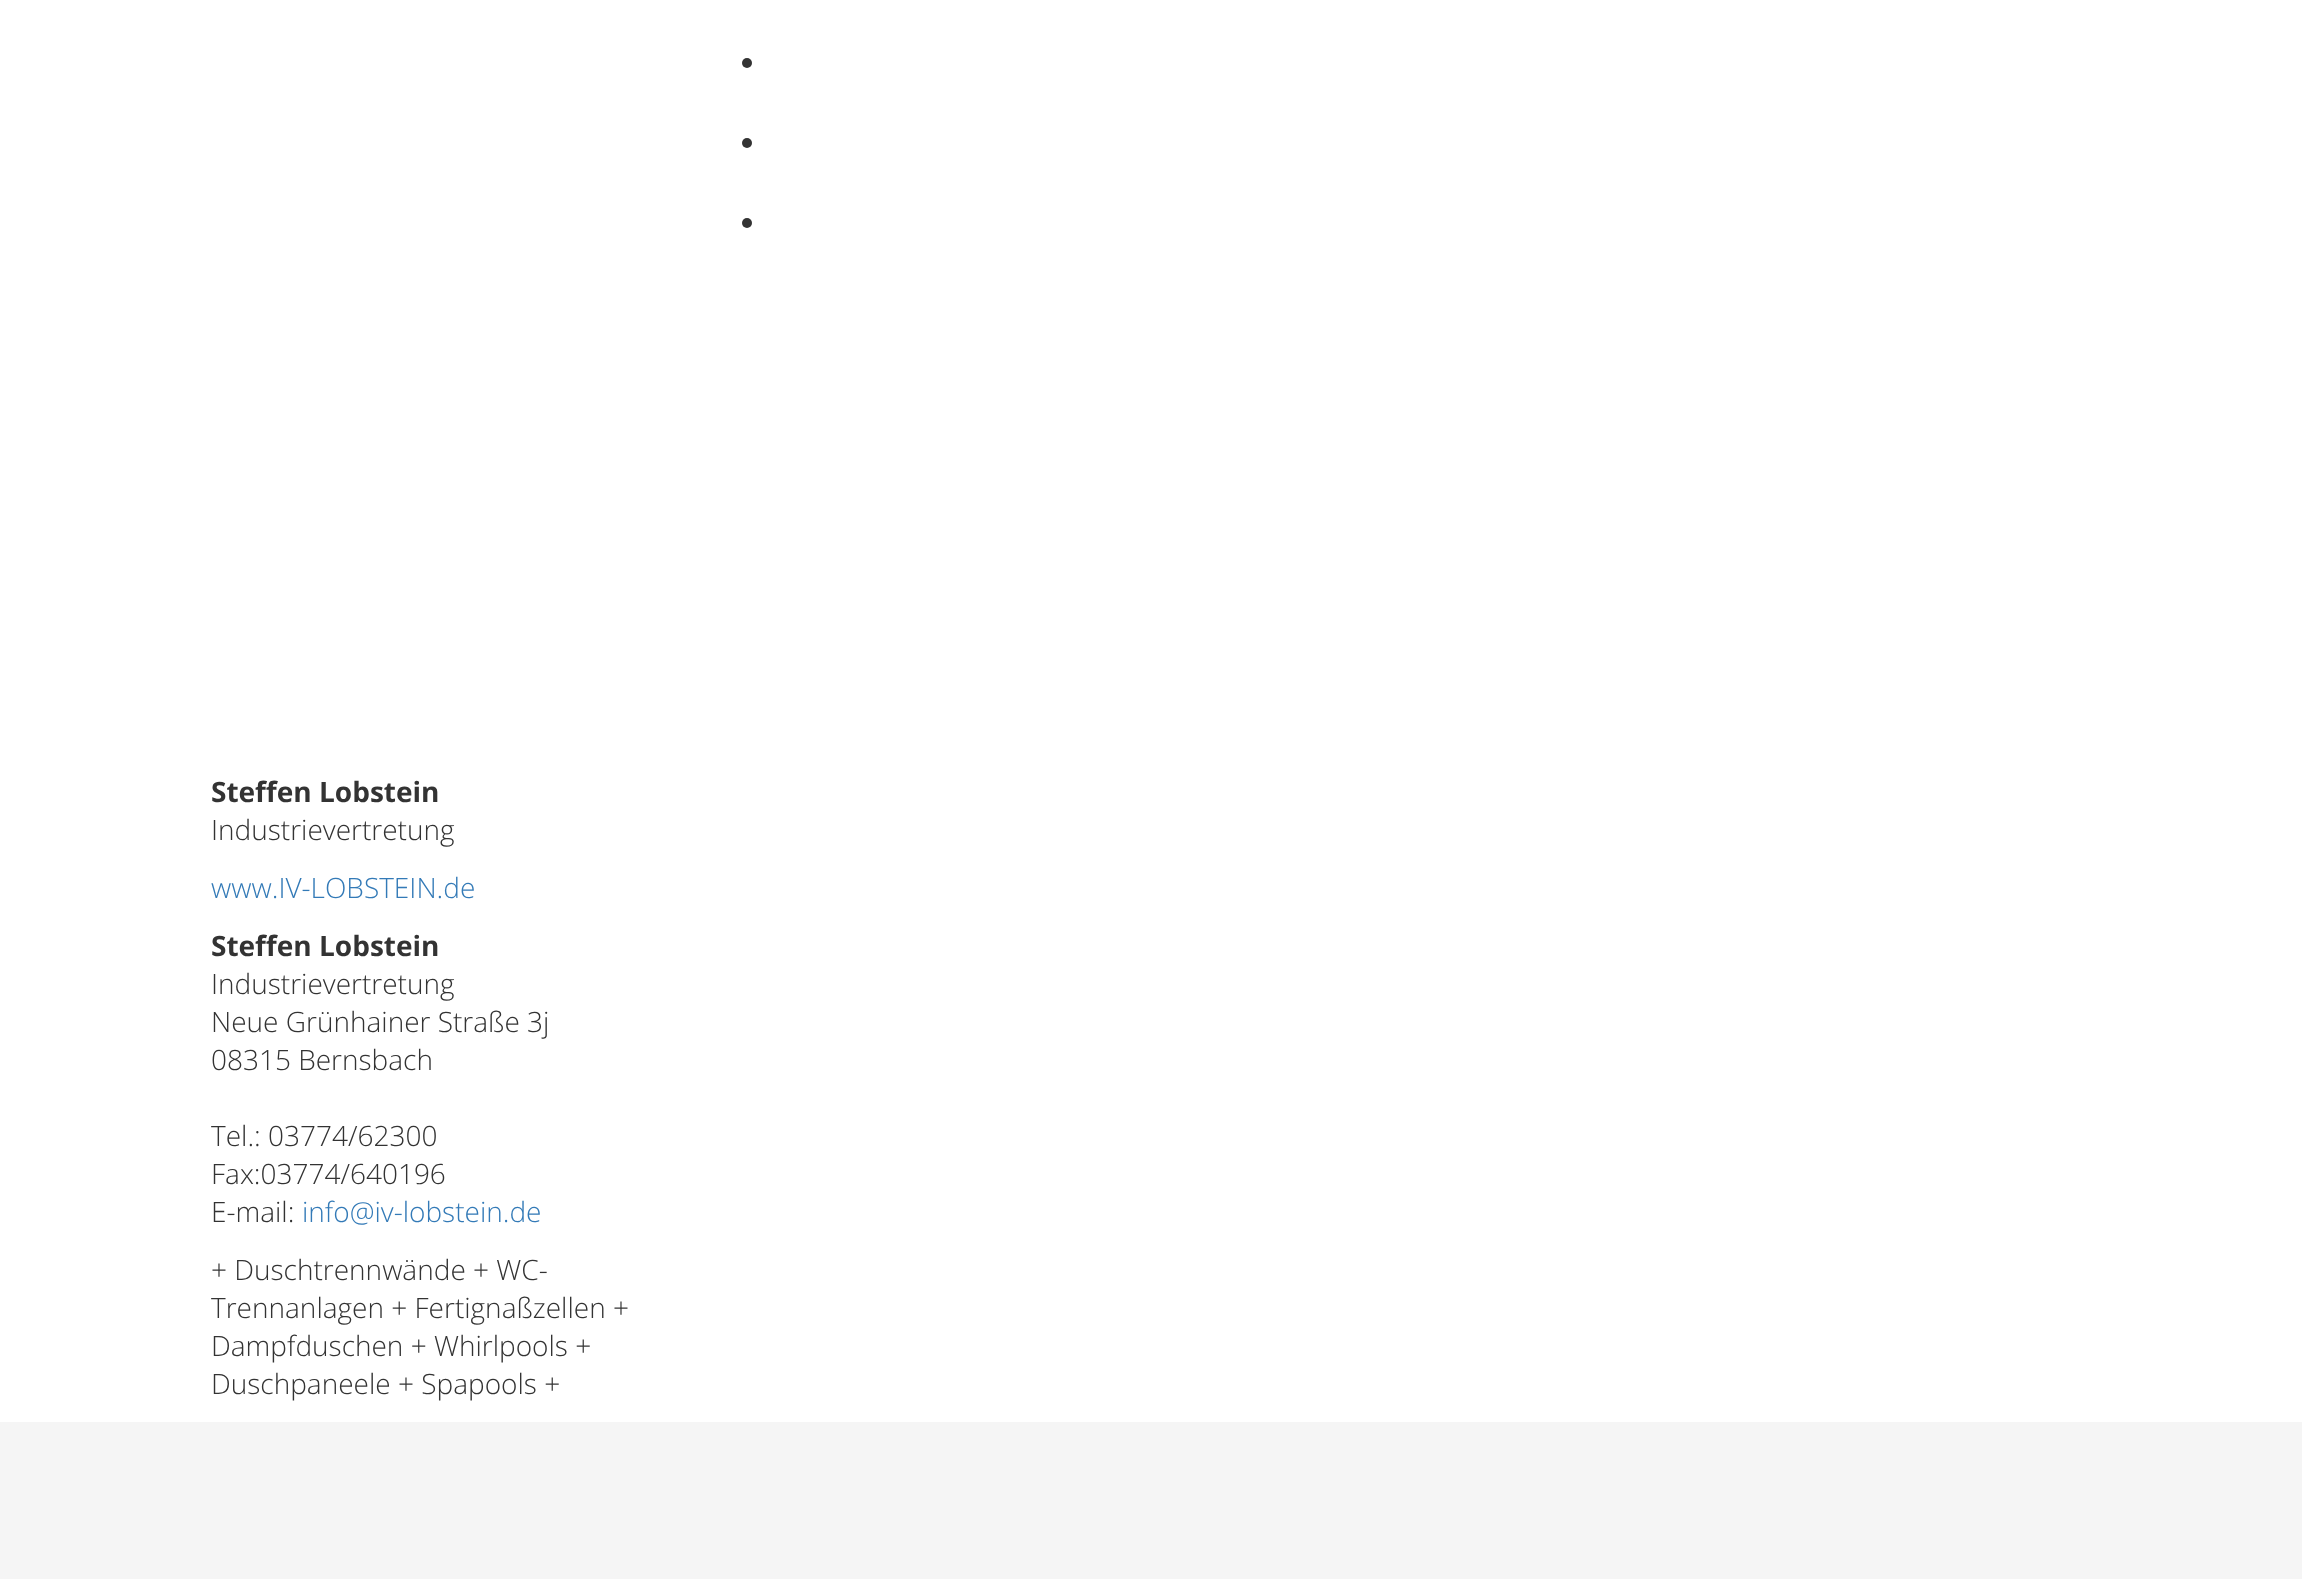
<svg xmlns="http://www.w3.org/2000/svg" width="2302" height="1579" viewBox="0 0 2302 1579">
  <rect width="100%" height="100%" fill="#fff"/>
  <circle cx="747" cy="63" r="5" fill="#333"/>
  <circle cx="747" cy="143" r="5" fill="#333"/>
  <circle cx="747" cy="223" r="5" fill="#333"/>
  <path d="M0 1422h2302v157H0z" fill="#f5f5f5"/>
  <text x="211" y="802" font-family="Open Sans" font-size="28" font-weight="bold" fill="#333">Steffen Lobstein</text>
  <text x="211" y="840" font-family="Open Sans" font-size="28" font-weight="300" fill="#333">Industrievertretung</text>
  <text x="211" y="898" font-family="Open Sans" font-size="28" font-weight="300" fill="#337ab7">www.IV-LOBSTEIN.de</text>
  <text x="211" y="956" font-family="Open Sans" font-size="28" font-weight="bold" fill="#333">Steffen Lobstein</text>
  <g font-family="Open Sans" font-size="28" font-weight="300" fill="#333">
    <text x="211" y="994">Industrievertretung</text>
    <text x="211" y="1032">Neue Grünhainer Straße 3j</text>
    <text x="211" y="1070">08315 Bernsbach</text>
    <text x="211" y="1146">Tel.: 03774/62300</text>
    <text x="211" y="1184">Fax:03774/640196</text>
    <text x="211" y="1222">E-mail:</text>
  </g>
  <text x="302" y="1222" font-family="Open Sans" font-size="28" font-weight="300" fill="#337ab7">info@iv-lobstein.de</text>
  <g font-family="Open Sans" font-size="28" font-weight="300" fill="#333">
    <text x="211" y="1280">+ Duschtrennwände + WC-</text>
    <text x="211" y="1318">Trennanlagen + Fertignaßzellen +</text>
    <text x="211" y="1356">Dampfduschen + Whirlpools +</text>
    <text x="211" y="1394">Duschpaneele + Spapools +</text>
  </g>
</svg>
